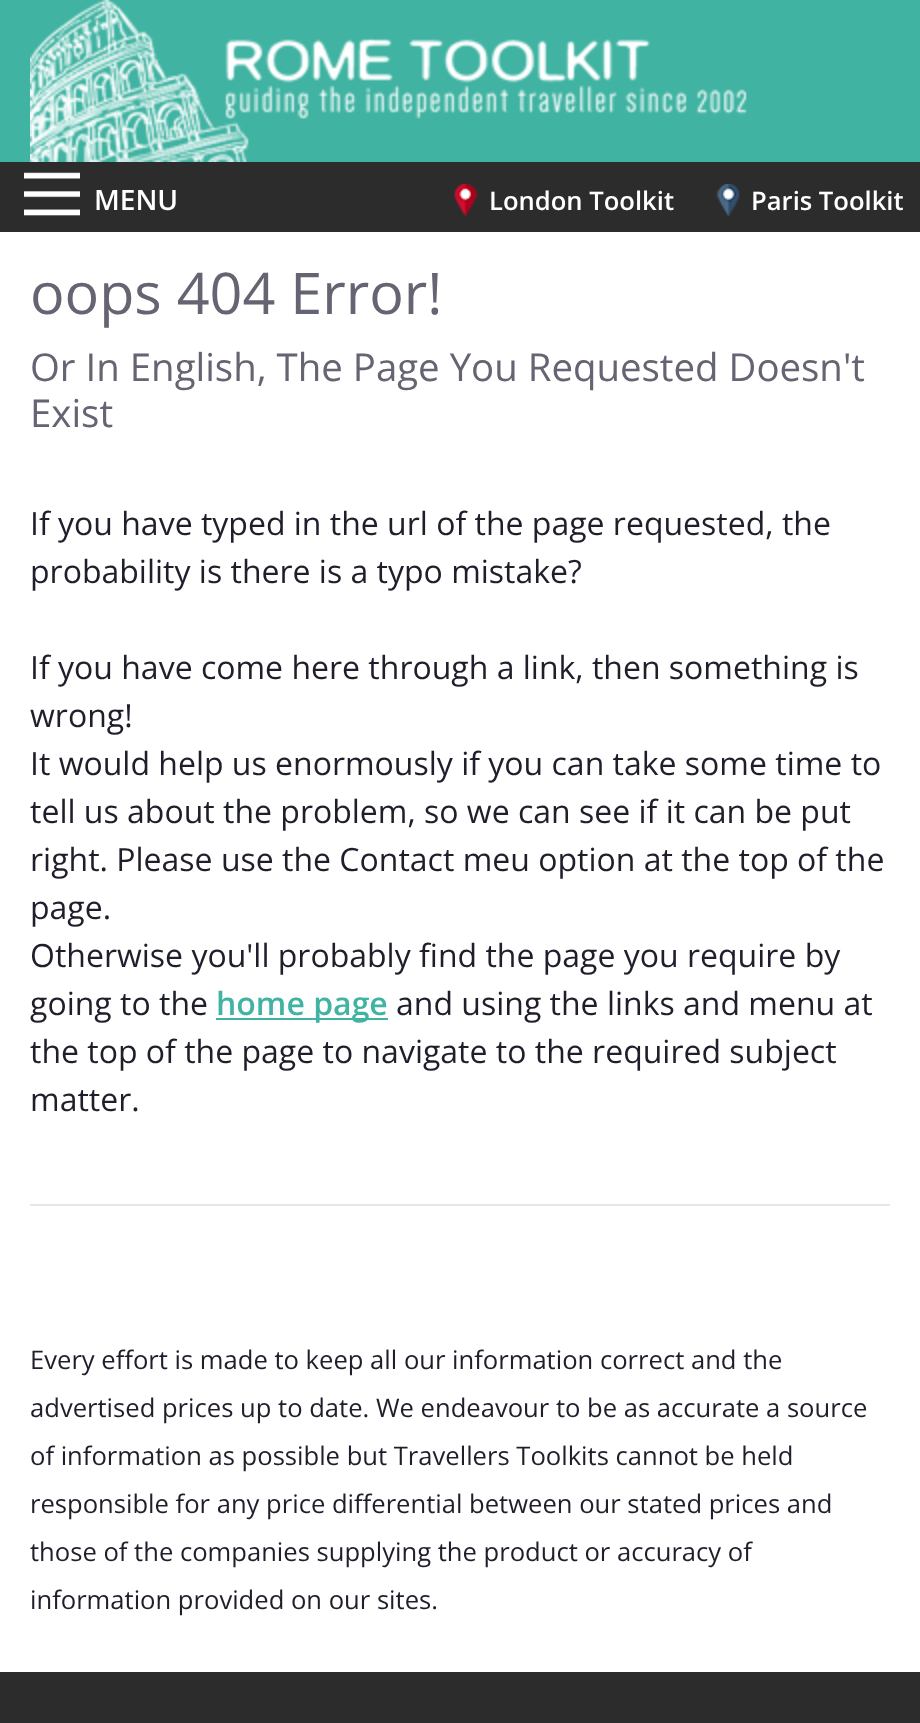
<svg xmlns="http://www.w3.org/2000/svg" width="920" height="1723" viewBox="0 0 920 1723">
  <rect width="100%" height="100%" fill="#fff"/>
  <path d="M0 0h920v162H0z" fill="#40b3a2"/>
  <image x="30" y="0" width="717" height="162" href="img/1.png"/>
  <path d="M0 162h920v70H0z" fill="#2c2c2c"/>
  <image x="24" y="172" width="56" height="44" href="img/2.png"/>
  <image x="454" y="184" width="24" height="32" href="img/3.png"/>
  <image x="716" y="184" width="24" height="32" href="img/4.png"/>
  <path d="M216 1018h172v2H216z" fill="#40b3a2"/>
  <path d="M30 1204h860v2H30z" fill="#e6e6e6"/>
  <path d="M0 1672h920v51H0z" fill="#2c2c2c"/>
  <text x="94" y="210" font-family="Open Sans" font-size="28" font-weight="600" fill="#fff">MENU</text>
  <g font-family="Open Sans" font-size="25.6" font-weight="600" fill="#fff">
    <text x="489" y="210">London Toolkit</text>
    <text x="751" y="210">Paris Toolkit</text>
  </g>
  <text x="30" y="314" font-family="Open Sans" font-size="57.5" fill="#646472">oops 404 Error!</text>
  <g font-family="Open Sans" font-size="38.4" fill="#646472">
    <text x="30" y="381">Or In English, The Page You Requested Doesn't</text>
    <text x="30" y="427">Exist</text>
  </g>
  <g font-family="Open Sans" font-size="32" fill="#1f1f2c">
    <text x="30" y="535">If you have typed in the url of the page requested, the</text>
    <text x="30" y="583">probability is there is a typo mistake?</text>
    <text x="30" y="679">If you have come here through a link, then something is</text>
    <text x="30" y="727">wrong!</text>
    <text x="30" y="775">It would help us enormously if you can take some time to</text>
    <text x="30" y="823">tell us about the problem, so we can see if it can be put</text>
    <text x="30" y="871">right. Please use the Contact meu option at the top of the</text>
    <text x="30" y="919">page.</text>
    <text x="30" y="967">Otherwise you'll probably find the page you require by</text>
    <text x="30" y="1015">going to the</text>
  </g>
  <text x="216" y="1015" font-family="Open Sans" font-size="32" font-weight="600" fill="#40b3a2">home page</text>
  <g font-family="Open Sans" font-size="32" fill="#1f1f2c">
    <text x="396" y="1015">and using the links and menu at</text>
    <text x="30" y="1063">the top of the page to navigate to the required subject</text>
    <text x="30" y="1111">matter.</text>
  </g>
  <g font-family="Open Sans" font-size="25.6" fill="#1f1f2c">
    <text x="30" y="1369">Every effort is made to keep all our information correct and the</text>
    <text x="30" y="1417">advertised prices up to date. We endeavour to be as accurate a source</text>
    <text x="30" y="1465">of information as possible but Travellers Toolkits cannot be held</text>
    <text x="30" y="1513">responsible for any price differential between our stated prices and</text>
    <text x="30" y="1561">those of the companies supplying the product or accuracy of</text>
    <text x="30" y="1609">information provided on our sites.</text>
  </g>
</svg>
